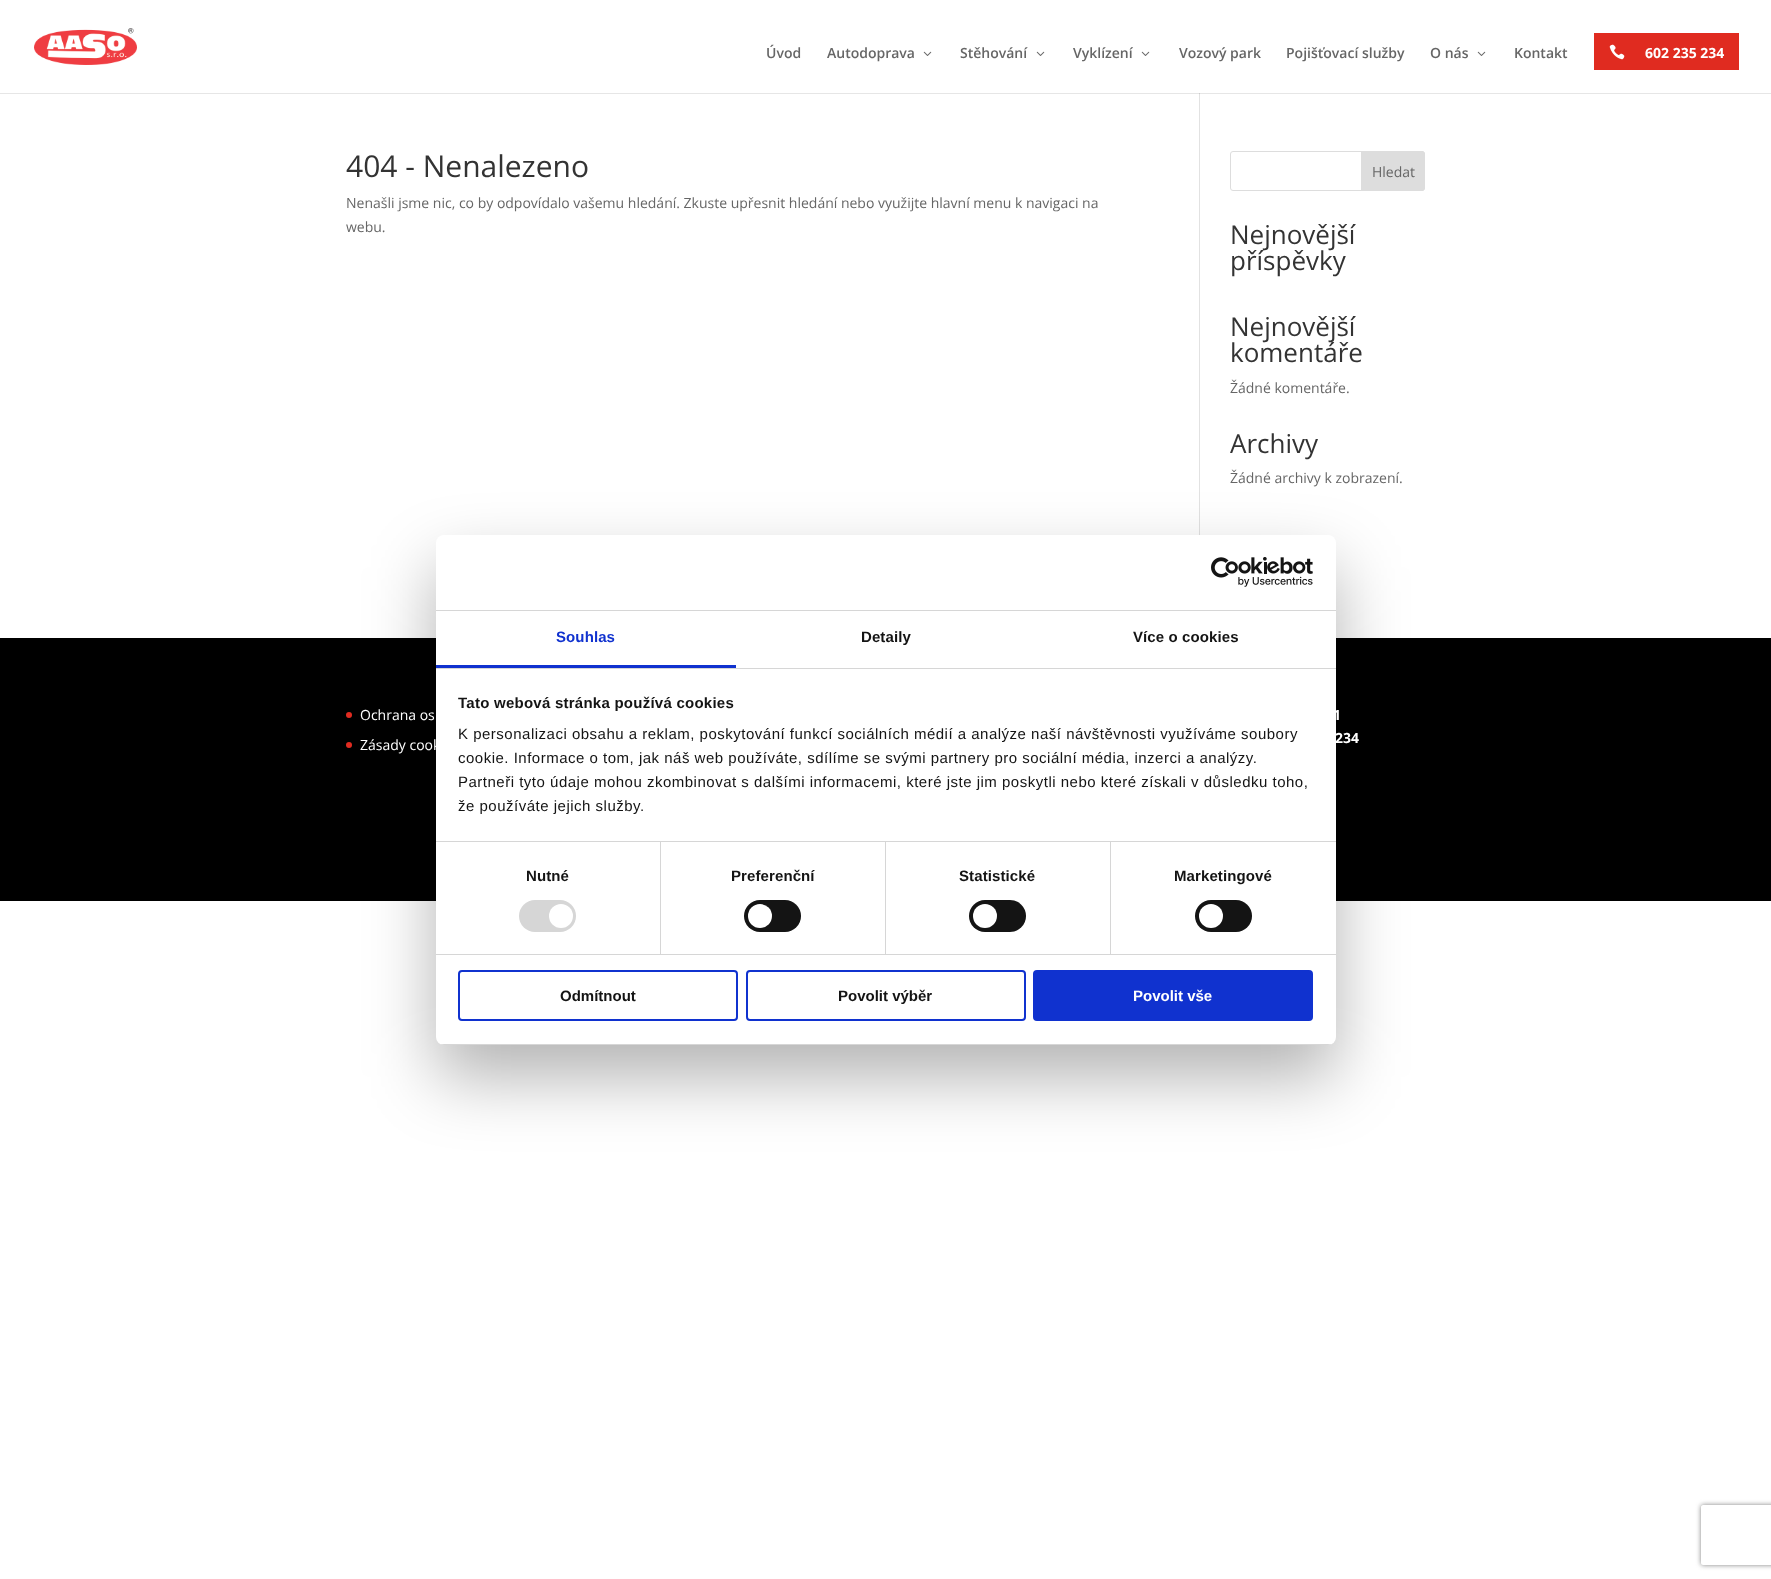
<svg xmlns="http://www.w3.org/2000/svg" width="1771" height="1579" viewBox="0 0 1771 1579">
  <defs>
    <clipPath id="clip1"><rect x="436" y="535" width="900" height="510" rx="8"/></clipPath>
    <clipPath id="clip2"><path d="M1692 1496H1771V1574H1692ZM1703 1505H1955C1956 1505 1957 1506 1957 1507V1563C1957 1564 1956 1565 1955 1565H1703C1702 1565 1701 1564 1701 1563V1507C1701 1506 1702 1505 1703 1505Z" clip-rule="evenodd"/></clipPath>
  </defs>
  <rect width="100%" height="100%" fill="#fff"/>
  <path d="M0 93h1771v1H0z" fill="#e6e6e6"/>
  <image x="34" y="28" width="103" height="37" href="img/1.png"/>
  <image x="923" y="51" width="9" height="5" href="img/2.png"/>
  <image x="1036" y="51" width="9" height="5" href="img/2.png"/>
  <image x="1141" y="51" width="9" height="5" href="img/2.png"/>
  <image x="1477" y="51" width="9" height="5" href="img/2.png"/>
  <path d="M1594 33h145v37H1594z" fill="#e02b20"/>
  <image x="1609" y="44" width="16" height="16" href="img/3.png"/>
  <path d="M1199 93h1v442H1199z" fill="#e2e2e2"/>
  <path d="M1199 93h1v1H1199z" fill="#cbcbcb"/>
  <rect x="1230.5" y="151.5" width="194" height="39" rx="2.5" fill="none" stroke="#ddd"/>
  <path d="M1361.5 151.5H1422C1423.5 151.5 1424.5 152.5 1424.5 154V188C1424.5 189.5 1423.5 190.5 1422 190.5H1361.5Z" fill="#ddd" stroke="#ddd"/>
  <path d="M0 638h1771v263H0z" fill="#000"/>
  <circle cx="349" cy="715" r="3" fill="#e02b20"/>
  <circle cx="349" cy="745" r="3" fill="#e02b20"/>
  <rect x="436" y="567" width="900" height="510" rx="8" fill="#0000004d" filter="blur(34px)"/>
  <rect x="436" y="535" width="900" height="510" rx="8" fill="#fff"/>
  <path d="M436 610h900v1H436z" fill="#d6d6d6"/>
  <image x="1211" y="557" width="102" height="30" href="img/4.png"/>
  <path d="M436 668h900v1H436z" fill="#d6d6d6"/>
  <path d="M436 665h300v3H436z" fill="#1032cf"/>
  <path d="M436 841h900v1H436z" fill="#d6d6d6"/>
  <path d="M436 954h900v1H436z" fill="#d6d6d6"/>
  <path d="M660 842h1v112H660z" fill="#d6d6d6"/>
  <rect x="519" y="900" width="57" height="32" rx="16" fill="#d6d6d6"/>
  <circle cx="561" cy="916" r="12" fill="#fff"/>
  <path d="M885 842h1v112H885z" fill="#d6d6d6"/>
  <rect x="744" y="900" width="57" height="32" rx="16" fill="#141414"/>
  <circle cx="760" cy="916" r="12" fill="#fff"/>
  <path d="M1110 842h1v112H1110z" fill="#d6d6d6"/>
  <rect x="969" y="900" width="57" height="32" rx="16" fill="#141414"/>
  <circle cx="985" cy="916" r="12" fill="#fff"/>
  <rect x="1195" y="900" width="57" height="32" rx="16" fill="#141414"/>
  <circle cx="1211" cy="916" r="12" fill="#fff"/>
  <g clip-path="url(#clip1)">
    <path d="M436 1044h900v1H436z" fill="#d6d6d6"/>
  </g>
  <rect x="459" y="971" width="278" height="49" rx="3" fill="none" stroke="#1032cf" stroke-width="2"/>
  <rect x="747" y="971" width="278" height="49" rx="3" fill="none" stroke="#1032cf" stroke-width="2"/>
  <rect x="1034" y="971" width="278" height="49" rx="3" fill="#1032cf" stroke="#1032cf" stroke-width="2"/>
  <g clip-path="url(#clip2)">
    <rect x="1701" y="1505" width="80" height="60" rx="2" fill="#808080" filter="blur(2.5px)"/>
  </g>
  <g font-family="Open Sans" font-size="14" font-weight="600" fill="#666">
    <text x="766" y="58">Úvod</text>
    <text x="827" y="58">Autodoprava</text>
    <text x="960" y="58">Stěhování</text>
    <text x="1073" y="58">Vyklízení</text>
    <text x="1179" y="58">Vozový park</text>
    <text x="1286" y="58">Pojišťovací služby</text>
    <text x="1430" y="58">O nás</text>
    <text x="1514" y="58">Kontakt</text>
  </g>
  <text x="1645" y="58" font-family="Open Sans" font-size="14" font-weight="bold" fill="#fff">602 235 234</text>
  <text x="346" y="177" font-family="Open Sans" font-size="30" fill="#333">404 - Nenalezeno</text>
  <g font-family="Open Sans" font-size="14" fill="#666">
    <text x="346" y="208">Nenašli jsme nic, co by odpovídalo vašemu hledání. Zkuste upřesnit hledání nebo využijte hlavní menu k navigaci na</text>
    <text x="346" y="232">webu.</text>
    <text x="1372" y="177">Hledat</text>
  </g>
  <g font-family="Open Sans" font-size="26" fill="#333">
    <text x="1230" y="244">Nejnovější</text>
    <text x="1230" y="270">příspěvky</text>
    <text x="1230" y="336">Nejnovější</text>
    <text x="1230" y="362">komentáře</text>
  </g>
  <text x="1230" y="393" font-family="Open Sans" font-size="14" fill="#666">Žádné komentáře.</text>
  <text x="1230" y="453" font-family="Open Sans" font-size="26" fill="#333">Archivy</text>
  <text x="1230" y="483" font-family="Open Sans" font-size="14" fill="#666">Žádné archivy k zobrazení.</text>
  <g font-family="Open Sans" font-size="14" fill="#fff">
    <text x="360" y="720">Ochrana os</text>
    <text x="360" y="750">Zásady cook</text>
  </g>
  <g font-family="Open Sans" font-size="14" font-weight="bold" fill="#fff">
    <text x="1333" y="720">1</text>
    <text x="1335" y="743">234</text>
  </g>
  <text x="556" y="642" font-family="Liberation Sans" font-size="15" font-weight="bold" letter-spacing="0.1" fill="#1032cf">Souhlas</text>
  <g font-family="Liberation Sans" font-size="15" font-weight="bold" letter-spacing="0.1" fill="#141414">
    <text x="861" y="642">Detaily</text>
    <text x="1133" y="642">Více o cookies</text>
  </g>
  <text x="458" y="708" font-family="Liberation Sans" font-size="15" font-weight="bold" letter-spacing="0.25" fill="#141414">Tato webová stránka používá cookies</text>
  <g font-family="Liberation Sans" font-size="15" letter-spacing="0.5" fill="#141414">
    <text x="458" y="739">K personalizaci obsahu a reklam, poskytování funkcí sociálních médií a analýze naší návštěvnosti využíváme soubory</text>
    <text x="458" y="763">cookie. Informace o tom, jak náš web používáte, sdílíme se svými partnery pro sociální média, inzerci a analýzy.</text>
    <text x="458" y="787">Partneři tyto údaje mohou zkombinovat s dalšími informacemi, které jste jim poskytli nebo které získali v důsledku toho,</text>
    <text x="458" y="811">že používáte jejich služby.</text>
  </g>
  <g font-family="Liberation Sans" font-size="15" font-weight="bold" letter-spacing="0.1" fill="#141414">
    <text x="526" y="881">Nutné</text>
    <text x="731" y="881">Preferenční</text>
    <text x="959" y="881">Statistické</text>
    <text x="1174" y="881">Marketingové</text>
  </g>
  <g font-family="Liberation Sans" font-size="15" font-weight="bold" fill="#141414">
    <text x="560" y="1001">Odmítnout</text>
    <text x="838" y="1001">Povolit výběr</text>
  </g>
  <text x="1133" y="1001" font-family="Liberation Sans" font-size="15" font-weight="bold" fill="#fff">Povolit vše</text>
</svg>
